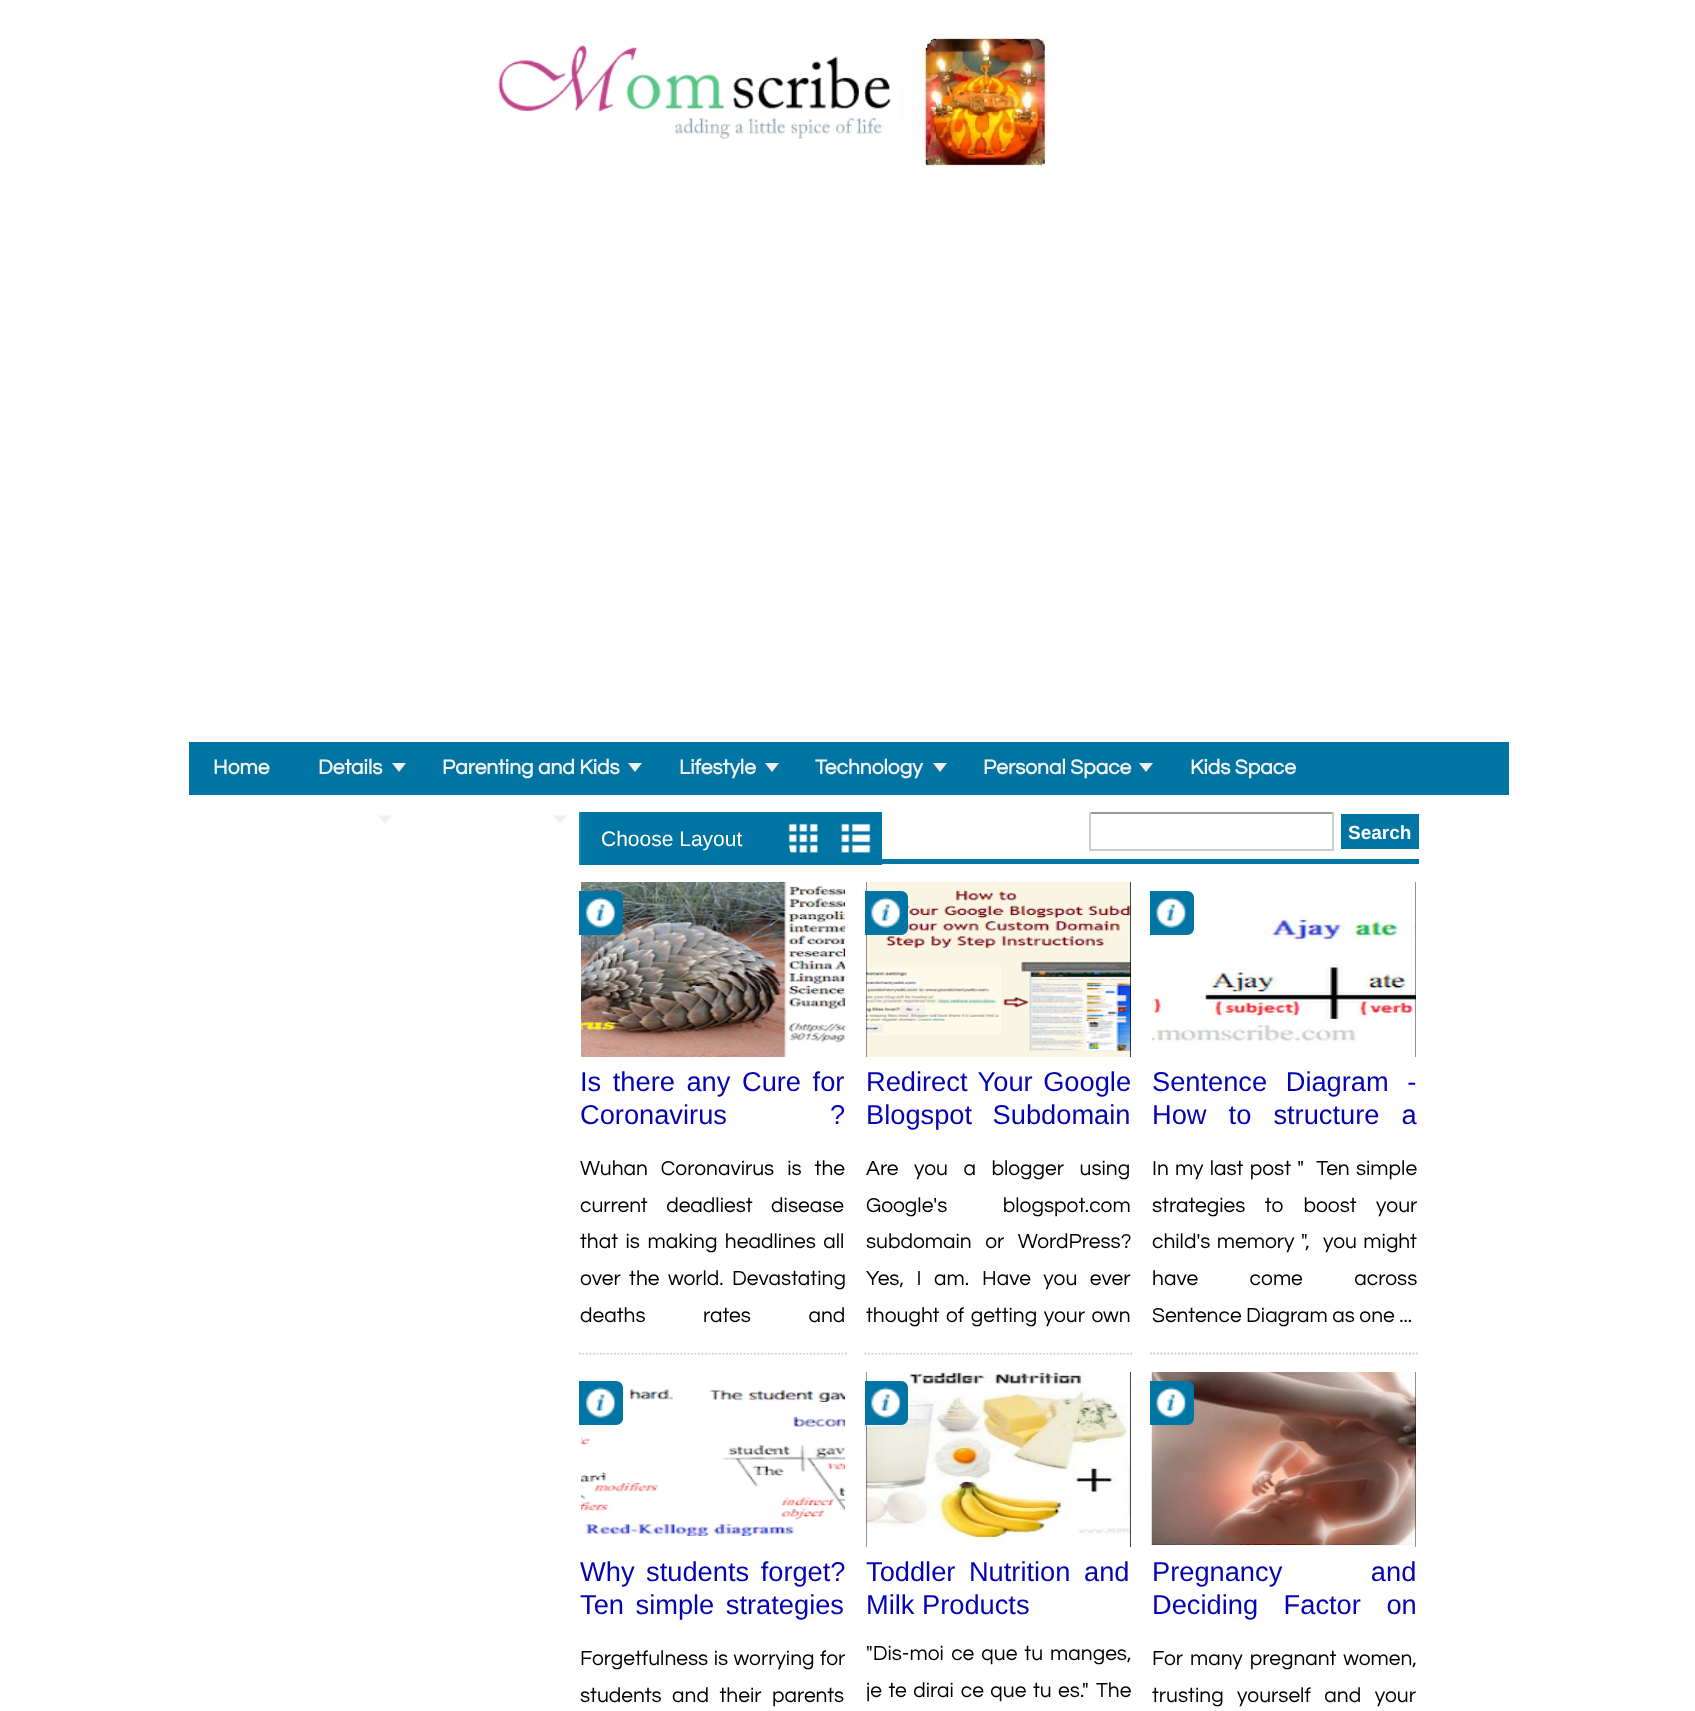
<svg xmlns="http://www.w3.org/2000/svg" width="1695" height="1711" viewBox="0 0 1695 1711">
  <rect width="100%" height="100%" fill="#fff"/>
  <image x="498" y="36" width="550" height="133" href="img/1.png"/>
  <path d="M189 742h1320v53H189z" fill="#0075a3"/>
  <path d="M392 763H406L399 772Z" fill="#f1f1f1"/>
  <path d="M628 763H642L635 772Z" fill="#f1f1f1"/>
  <path d="M765 763H779L772 772Z" fill="#f1f1f1"/>
  <path d="M933 763H947L940 772Z" fill="#f1f1f1"/>
  <path d="M1139 763H1153L1146 772Z" fill="#f1f1f1"/>
  <path d="M378 815.5H392L385 824Z" fill="#f1f1f1"/>
  <path d="M553 815.5H567L560 824Z" fill="#f1f1f1"/>
  <path d="M882 859h537v5H882z" fill="#0075a3"/>
  <path d="M581 812h301v53H581z" fill="#0075a3"/>
  <path d="M579 812h2v53H579z" fill="#098dc0"/>
  <image x="788" y="823" width="30" height="30" href="img/2.png"/>
  <path d="M794.5 864.5H777L786 838Z" fill="#0075a3"/>
  <image x="841" y="823" width="30" height="30" href="img/3.png"/>
  <path d="M1089 812h245v2H1089z" fill="#999"/>
  <path d="M1332 812h2v39H1332z" fill="#ccc"/>
  <path d="M1089 849h245v2H1089z" fill="#ccc"/>
  <path d="M1089 812h2v39H1089z" fill="#ccc"/>
  <path d="M1341 814h78v35H1341z" fill="#0075a3"/>
  <path d="M579 1353.5H847" fill="none" stroke="#ccc" stroke-width="1.8" stroke-dasharray="1.75 1.75"/>
  <image x="581" y="882" width="265" height="175" href="img/4.png"/>
  <path d="M579 891H616C620 891 623 894 623 898V928C623 932 620 935 616 935H579Z" fill="#0075a3"/>
  <image x="585" y="897" width="32" height="31" href="img/5.png"/>
  <path d="M582 1352h262v1H582z" fill="#fff"/>
  <path d="M864.5 1353.5H1132" fill="none" stroke="#ccc" stroke-width="1.8" stroke-dasharray="1.75 1.75"/>
  <path d="M866 882h265v175H866z" fill="#0a0a0a"/>
  <image x="866" y="882" width="265" height="175" href="img/6.png"/>
  <path d="M865 891H901C905 891 908 894 908 898V928C908 932 905 935 901 935H865Z" fill="#0075a3"/>
  <image x="871" y="897" width="31" height="31" href="img/7.png"/>
  <path d="M866 1352h265v1H866z" fill="#fff"/>
  <path d="M1150 1353.5H1417.5" fill="none" stroke="#ccc" stroke-width="1.8" stroke-dasharray="1.75 1.75"/>
  <path d="M1415 882h1v175H1415z" fill="#0a0a0a"/>
  <image x="1151" y="882" width="265" height="175" href="img/8.png"/>
  <path d="M1150 891H1187C1191 891 1194 894 1194 898V928C1194 932 1191 935 1187 935H1150Z" fill="#0075a3"/>
  <image x="1156" y="897" width="31" height="31" href="img/9.png"/>
  <image x="581" y="1372" width="265" height="175" href="img/10.png"/>
  <path d="M579 1381H616C620 1381 623 1384 623 1388V1418C623 1422 620 1425 616 1425H579Z" fill="#0075a3"/>
  <image x="585" y="1387" width="32" height="31" href="img/5.png"/>
  <path d="M866 1372h265v175H866z" fill="#0a0a0a"/>
  <image x="866" y="1372" width="265" height="175" href="img/11.png"/>
  <path d="M865 1381H901C905 1381 908 1384 908 1388V1418C908 1422 905 1425 901 1425H865Z" fill="#0075a3"/>
  <image x="871" y="1387" width="31" height="31" href="img/7.png"/>
  <path d="M1415 1372h1v175H1415z" fill="#0a0a0a"/>
  <image x="1151" y="1372" width="265" height="175" href="img/12.png"/>
  <path d="M1150 1381H1187C1191 1381 1194 1384 1194 1388V1418C1194 1422 1191 1425 1187 1425H1150Z" fill="#0075a3"/>
  <image x="1156" y="1387" width="31" height="31" href="img/9.png"/>
  <g font-family="Questrial" font-size="21" font-weight="bold" fill="#f1f1f1">
    <text x="213" y="774">Home</text>
    <text x="318" y="774">Details</text>
    <text x="442" y="774">Parenting and Kids</text>
    <text x="679" y="774">Lifestyle</text>
    <text x="815" y="774">Technology</text>
    <text x="983" y="774">Personal Space</text>
    <text x="1190" y="774">Kids Space</text>
  </g>
  <text x="601" y="846" font-family="Liberation Sans" font-size="21" fill="#fff">Choose Layout</text>
  <text x="1348" y="839" font-family="Liberation Sans" font-size="19" font-weight="bold" fill="#fff">Search</text>
  <g font-family="Liberation Sans" font-size="27.25" fill="#0404b4">
    <text x="580" y="1091" word-spacing="4">Is there any Cure for</text>
    <text x="580" y="1124">Coronavirus</text>
    <text x="830" y="1124">?</text>
  </g>
  <g font-family="Questrial" font-size="21" fill="#000">
    <text x="580" y="1175" word-spacing="8.5">Wuhan Coronavirus is the</text>
    <text x="580" y="1212" word-spacing="14">current deadliest disease</text>
    <text x="580" y="1248" word-spacing="3">that is making headlines all</text>
    <text x="580" y="1285" word-spacing="4">over the world. Devastating</text>
    <text x="580" y="1322" word-spacing="53">deaths rates and</text>
  </g>
  <g font-family="Liberation Sans" font-size="27.25" fill="#0404b4">
    <text x="866" y="1091" word-spacing="3">Redirect Your Google</text>
    <text x="866" y="1124" word-spacing="13">Blogspot Subdomain</text>
  </g>
  <g font-family="Questrial" font-size="21" fill="#000">
    <text x="866" y="1175" word-spacing="11">Are you a blogger using</text>
    <text x="866" y="1212" word-spacing="51">Google's blogspot.com</text>
    <text x="866" y="1248" word-spacing="9">subdomain or WordPress?</text>
    <text x="866" y="1285" word-spacing="8">Yes, I am.</text>
    <text x="982" y="1285" word-spacing="8">Have you ever</text>
    <text x="866" y="1322" word-spacing="2">thought of getting your own</text>
  </g>
  <g font-family="Liberation Sans" font-size="27.25" fill="#0404b4">
    <text x="1152" y="1091" word-spacing="11">Sentence Diagram -</text>
    <text x="1152" y="1124" word-spacing="14.5">How to structure a</text>
  </g>
  <g font-family="Questrial" font-size="21" fill="#000">
    <text x="1152" y="1175" word-spacing="1.75" xml:space="preserve">In my last post "  Ten simple</text>
    <text x="1152" y="1212" word-spacing="15">strategies to boost your</text>
    <text x="1152" y="1248" word-spacing="2" xml:space="preserve">child's memory ",  you might</text>
    <text x="1152" y="1285" word-spacing="47">have come across</text>
    <text x="1152" y="1322">Sentence Diagram as one ...</text>
  </g>
  <g font-family="Liberation Sans" font-size="27.25" fill="#0404b4">
    <text x="580" y="1581" word-spacing="4">Why students forget?</text>
    <text x="580" y="1614" word-spacing="4">Ten simple strategies</text>
  </g>
  <g font-family="Questrial" font-size="21" fill="#000">
    <text x="580" y="1665" word-spacing="1">Forgetfulness is worrying for</text>
    <text x="580" y="1702" word-spacing="6">students and their parents</text>
  </g>
  <g font-family="Liberation Sans" font-size="27.25" fill="#0404b4">
    <text x="866" y="1581" word-spacing="6">Toddler Nutrition and</text>
    <text x="866" y="1614">Milk Products</text>
  </g>
  <g font-family="Questrial" font-size="21" fill="#000">
    <text x="866" y="1660" word-spacing="2.5">"Dis-moi ce que tu manges,</text>
    <text x="866" y="1697" word-spacing="2">je te dirai ce que tu es."</text>
    <text x="1096" y="1697">The</text>
  </g>
  <g font-family="Liberation Sans" font-size="27.25" fill="#0404b4">
    <text x="1152" y="1581" word-spacing="81">Pregnancy and</text>
    <text x="1152" y="1614" word-spacing="18">Deciding Factor on</text>
  </g>
  <g font-family="Questrial" font-size="21" fill="#000">
    <text x="1152" y="1665" word-spacing="2.5">For many pregnant women,</text>
    <text x="1152" y="1702" word-spacing="9">trusting yourself and your</text>
  </g>
</svg>
